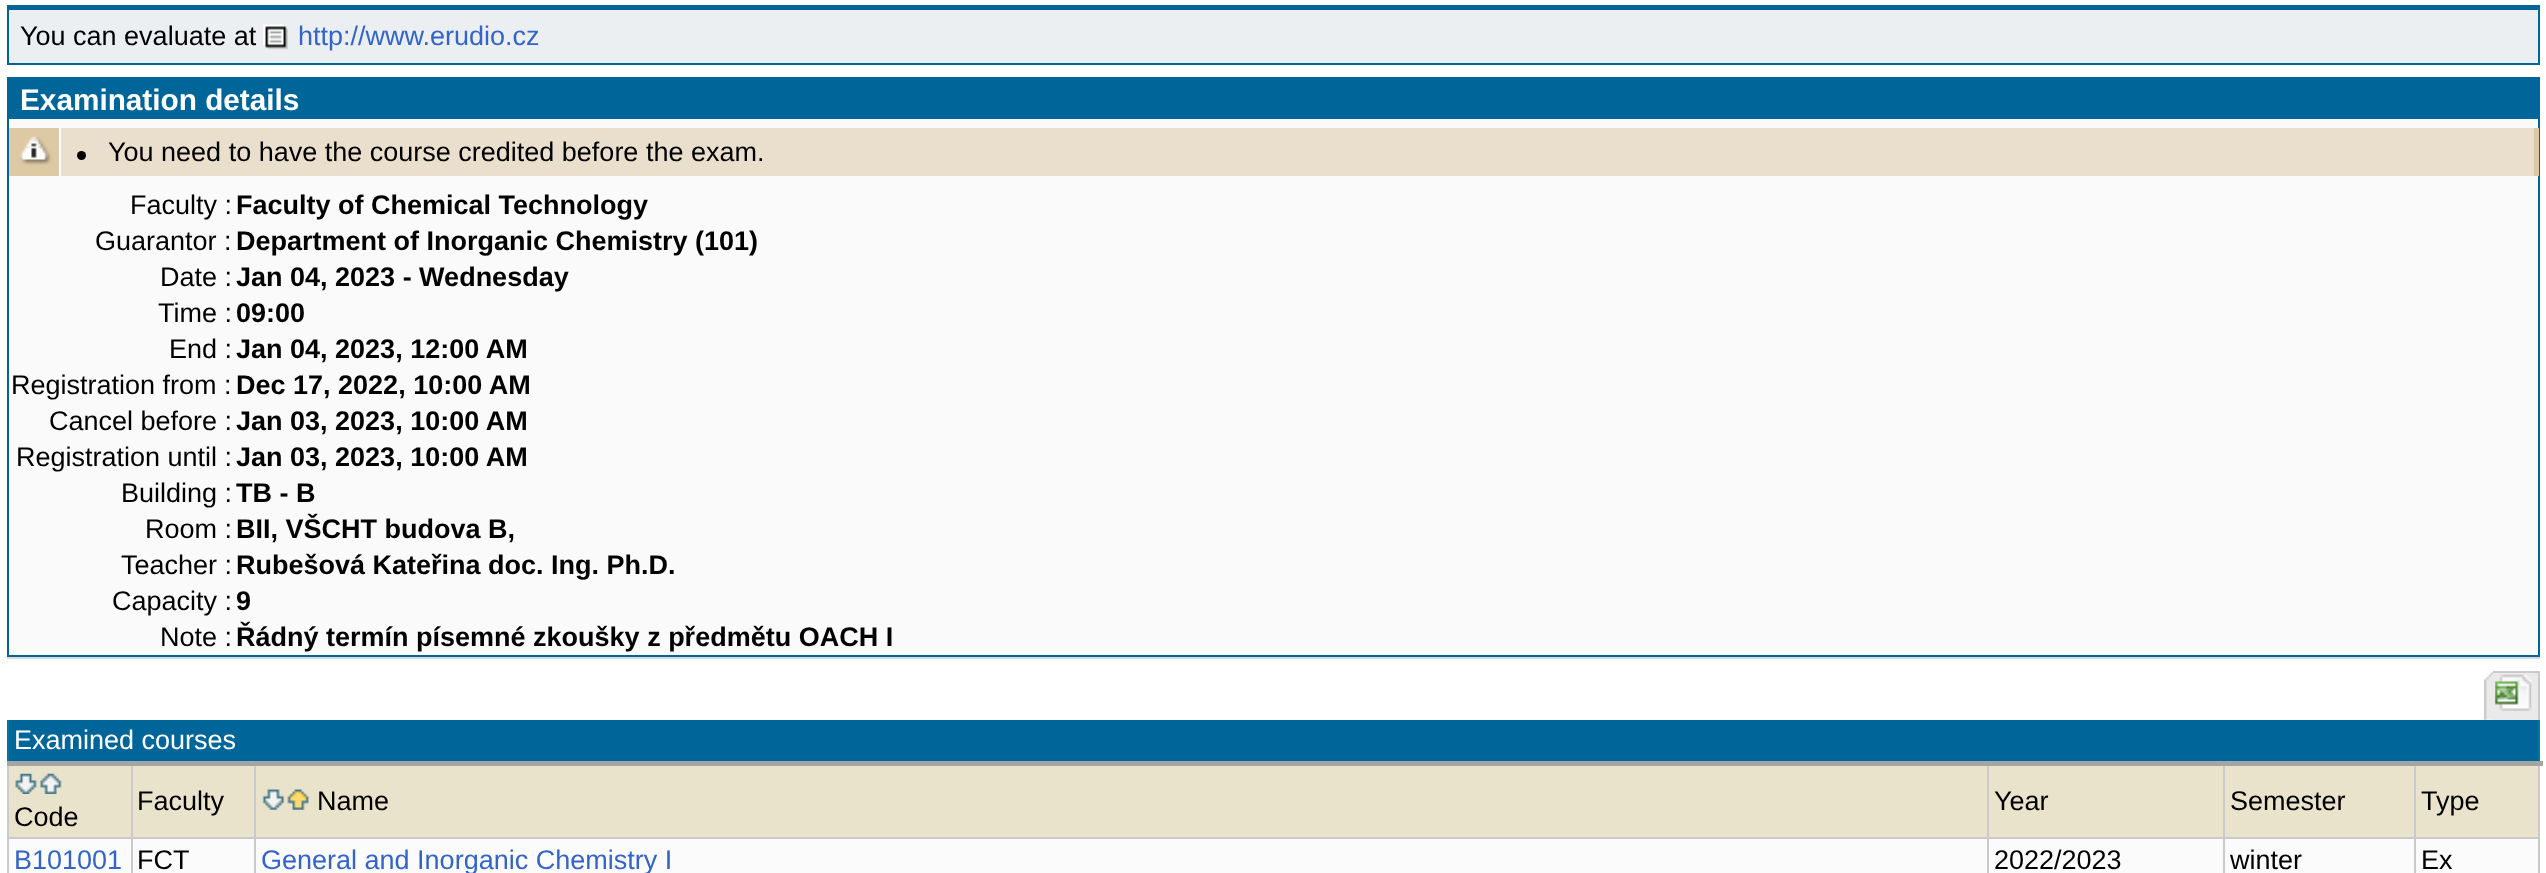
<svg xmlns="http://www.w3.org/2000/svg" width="2546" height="873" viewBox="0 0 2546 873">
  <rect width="100%" height="100%" fill="#fff"/>
  <path d="M9 10h2529v53H9z" fill="#eceff1"/>
  <path d="M7 5h2533v5H7z" fill="#069"/>
  <path d="M2538 5h2v60H2538z" fill="#069"/>
  <path d="M7 63h2533v2H7z" fill="#069"/>
  <path d="M7 5h2v60H7z" fill="#069"/>
  <image x="263" y="24" width="25" height="26" href="img/1.png"/>
  <path d="M9 119h2529v536H9z" fill="#fafafa"/>
  <path d="M7 77h2533v4H7z" fill="#069"/>
  <path d="M2538 77h2v580H2538z" fill="#069"/>
  <path d="M7 655h2533v2H7z" fill="#069"/>
  <path d="M7 77h2v580H7z" fill="#069"/>
  <path d="M9 81h2529v38H9z" fill="#069"/>
  <path d="M9 128h50v48H9z" fill="#dec9a5"/>
  <image x="20" y="136" width="32" height="29" href="img/2.png"/>
  <path d="M61 128h2473v48H61z" fill="#eadfcd"/>
  <path d="M2534 128h5v48H2534z" fill="#dec9a5"/>
  <path d="M59 128h2v48H59z" fill="#fff"/>
  <circle cx="81.5" cy="155.5" r="4.5" fill="#000"/>
  <path d="M7 657h2533v2H7z" fill="#dadada"/>
  <image x="2484" y="672" width="9" height="48" href="img/3.png"/>
  <path d="M2493 673h45v47H2493z" fill="#eaeaea"/>
  <path d="M2493 671h47v2H2493z" fill="#cacaca"/>
  <path d="M2538 671h2v49H2538z" fill="#cacaca"/>
  <image x="2495" y="674" width="37" height="37" href="img/4.png"/>
  <path d="M9 720h2529v41H9z" fill="#069"/>
  <path d="M7 837h2533v2H7z" fill="#cacaca"/>
  <path d="M2538 763h2v110H2538z" fill="#cacaca"/>
  <path d="M2538 720h2v45H2538z" fill="#07a"/>
  <path d="M7 763h2v110H7z" fill="#cacaca"/>
  <path d="M7 720h2v45H7z" fill="#07a"/>
  <path d="M9 766h2529v71H9z" fill="#eae3cc"/>
  <path d="M9 839h2529v34H9z" fill="#fbfbfb"/>
  <path d="M131 763h2v110H131z" fill="#cacaca"/>
  <path d="M254 763h2v110H254z" fill="#cacaca"/>
  <path d="M1987 763h2v110H1987z" fill="#cacaca"/>
  <path d="M2223 763h2v110H2223z" fill="#cacaca"/>
  <path d="M2414 763h2v110H2414z" fill="#cacaca"/>
  <path d="M7 761h2536v5H7z" fill="#a5a5a5"/>
  <image x="15" y="773" width="22" height="21" href="img/5.png"/>
  <image x="40" y="773" width="22" height="21" href="img/6.png"/>
  <image x="262" y="789" width="23" height="21" href="img/7.png"/>
  <image x="287" y="789" width="22" height="21" href="img/8.png"/>
  <text x="20" y="45" font-family="Liberation Sans" font-size="27" fill="#000">You can evaluate at</text>
  <text x="298" y="45" font-family="Liberation Sans" font-size="27" fill="#3364ca">http://www.erudio.cz</text>
  <text x="20" y="110" font-family="Liberation Sans" font-size="29.75" font-weight="bold" fill="#fff">Examination details</text>
  <g font-family="Liberation Sans" font-size="27" fill="#000">
    <text x="108" y="161">You need to have the course credited before the exam.</text>
    <text x="130" y="214">Faculty :</text>
  </g>
  <text x="236" y="214" font-family="Liberation Sans" font-size="27" font-weight="bold" fill="#000">Faculty of Chemical Technology</text>
  <text x="95" y="250" font-family="Liberation Sans" font-size="27" fill="#000">Guarantor :</text>
  <text x="236" y="250" font-family="Liberation Sans" font-size="27" font-weight="bold" fill="#000">Department of Inorganic Chemistry (101)</text>
  <text x="160" y="286" font-family="Liberation Sans" font-size="27" fill="#000">Date :</text>
  <text x="236" y="286" font-family="Liberation Sans" font-size="27" font-weight="bold" fill="#000">Jan 04, 2023 - Wednesday</text>
  <text x="158" y="322" font-family="Liberation Sans" font-size="27" fill="#000">Time :</text>
  <text x="236" y="322" font-family="Liberation Sans" font-size="27" font-weight="bold" fill="#000">09:00</text>
  <text x="169" y="358" font-family="Liberation Sans" font-size="27" fill="#000">End :</text>
  <text x="236" y="358" font-family="Liberation Sans" font-size="27" font-weight="bold" fill="#000">Jan 04, 2023, 12:00 AM</text>
  <text x="11" y="394" font-family="Liberation Sans" font-size="27" fill="#000">Registration from :</text>
  <text x="236" y="394" font-family="Liberation Sans" font-size="27" font-weight="bold" fill="#000">Dec 17, 2022, 10:00 AM</text>
  <text x="49" y="430" font-family="Liberation Sans" font-size="27" fill="#000">Cancel before :</text>
  <text x="236" y="430" font-family="Liberation Sans" font-size="27" font-weight="bold" fill="#000">Jan 03, 2023, 10:00 AM</text>
  <text x="16" y="466" font-family="Liberation Sans" font-size="27" fill="#000">Registration until :</text>
  <text x="236" y="466" font-family="Liberation Sans" font-size="27" font-weight="bold" fill="#000">Jan 03, 2023, 10:00 AM</text>
  <text x="121" y="502" font-family="Liberation Sans" font-size="27" fill="#000">Building :</text>
  <text x="236" y="502" font-family="Liberation Sans" font-size="27" font-weight="bold" fill="#000">TB - B</text>
  <text x="145" y="538" font-family="Liberation Sans" font-size="27" fill="#000">Room :</text>
  <text x="236" y="538" font-family="Liberation Sans" font-size="27" font-weight="bold" fill="#000">BII, VŠCHT budova B,</text>
  <text x="121" y="574" font-family="Liberation Sans" font-size="27" fill="#000">Teacher :</text>
  <text x="236" y="574" font-family="Liberation Sans" font-size="27" font-weight="bold" fill="#000">Rubešová Kateřina doc. Ing. Ph.D.</text>
  <text x="112" y="610" font-family="Liberation Sans" font-size="27" fill="#000">Capacity :</text>
  <text x="236" y="610" font-family="Liberation Sans" font-size="27" font-weight="bold" fill="#000">9</text>
  <text x="160" y="646" font-family="Liberation Sans" font-size="27" fill="#000">Note :</text>
  <text x="236" y="646" font-family="Liberation Sans" font-size="27" font-weight="bold" fill="#000">Řádný termín písemné zkoušky z předmětu OACH I</text>
  <text x="14" y="749" font-family="Liberation Sans" font-size="27" fill="#fff">Examined courses</text>
  <g font-family="Liberation Sans" font-size="27" fill="#000">
    <text x="14" y="826">Code</text>
    <text x="137" y="810">Faculty</text>
    <text x="317" y="810">Name</text>
    <text x="1994" y="810">Year</text>
    <text x="2230" y="810">Semester</text>
    <text x="2421" y="810">Type</text>
  </g>
  <text x="14" y="869" font-family="Liberation Sans" font-size="27" fill="#3364ca">B101001</text>
  <text x="137" y="869" font-family="Liberation Sans" font-size="27" fill="#000">FCT</text>
  <text x="261" y="869" font-family="Liberation Sans" font-size="27" fill="#3364ca">General and Inorganic Chemistry I</text>
  <g font-family="Liberation Sans" font-size="27" fill="#000">
    <text x="1994" y="869">2022/2023</text>
    <text x="2230" y="869">winter</text>
    <text x="2421" y="869">Ex</text>
  </g>
</svg>
